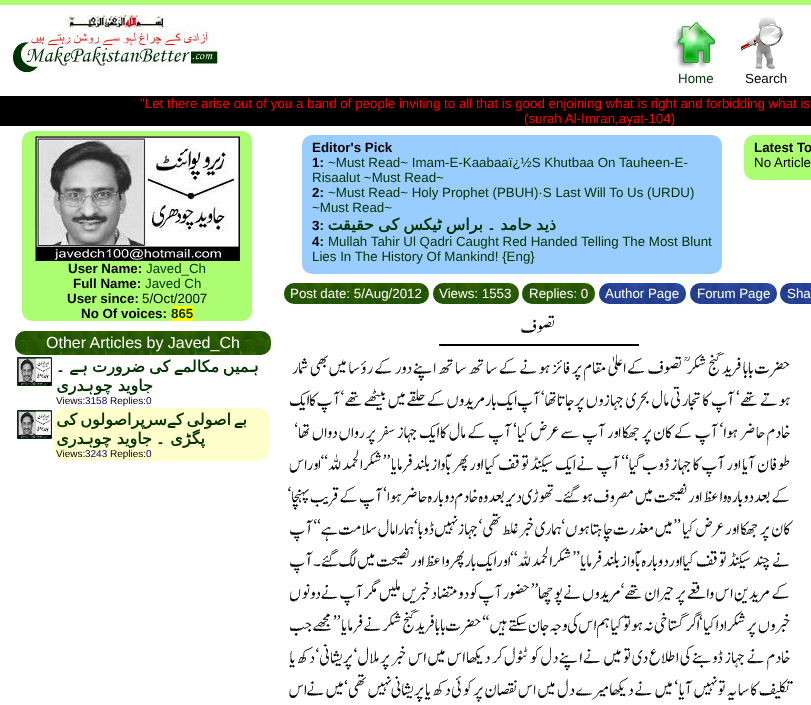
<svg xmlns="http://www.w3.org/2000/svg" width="811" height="705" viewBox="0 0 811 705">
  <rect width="100%" height="100%" fill="#fff"/>
  <path d="M0 0h811v5H0z" fill="#acfd71"/>
  <image x="66" y="15" width="100" height="13" href="img/1.png"/>
  <image x="10" y="28" width="209" height="47" href="img/2.png"/>
  <image x="672" y="22" width="43" height="46" href="img/3.png"/>
  <image x="741" y="16" width="43" height="53" href="img/4.png"/>
  <path d="M0 96h811v30H0z" fill="#000"/>
  <rect x="302" y="135" width="420" height="139" rx="10" fill="#9cf"/>
  <rect x="744" y="135" width="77" height="45" rx="10" fill="#acfd71"/>
  <image x="284" y="283" width="145" height="21" href="img/5.png"/>
  <image x="433" y="283" width="86" height="21" href="img/6.png"/>
  <image x="522" y="283" width="73" height="21" href="img/7.png"/>
  <image x="599" y="283" width="87" height="21" href="img/8.png"/>
  <image x="690" y="283" width="87" height="21" href="img/8.png"/>
  <image x="780" y="283" width="31" height="21" href="img/9.png"/>
  <image x="288" y="315" width="505" height="387" href="img/10.png"/>
  <rect x="22" y="131" width="230" height="190" rx="10" fill="#acfd71"/>
  <image x="35" y="136" width="205" height="125" href="img/11.png"/>
  <path d="M171 306h22v15H171z" fill="#ff0"/>
  <image x="15" y="331" width="256" height="24" href="img/12.png"/>
  <path d="M17.5 357.5h34v28H17.5z" fill="none" stroke="#030"/>
  <image x="18" y="358" width="33" height="27" href="img/13.png"/>
  <path d="M17.5 410.5h34v28H17.5z" fill="none" stroke="#030"/>
  <image x="18" y="411" width="33" height="27" href="img/13.png"/>
  <rect x="54" y="408" width="215" height="53" rx="10" fill="#ffc"/>
  <text x="678" y="83" font-family="Liberation Sans" font-size="13.33" fill="#030">Home</text>
  <text x="745" y="83" font-family="Liberation Sans" font-size="13.33" fill="#000">Search</text>
  <g font-family="Liberation Sans" font-size="13.33" fill="#f00">
    <text x="140" y="108">"Let there arise out of you a band of people inviting to all that is good enjoining what is right and forbidding what is</text>
    <text x="524" y="123">(surah Al-Imran,ayat-104)</text>
  </g>
  <g font-family="Liberation Sans" font-size="13.33" font-weight="bold" fill="#000">
    <text x="312" y="152">Editor's Pick</text>
    <text x="312" y="167">1:</text>
  </g>
  <g font-family="Liberation Sans" font-size="13.33" fill="#030">
    <text x="328" y="167">~Must Read~ Imam-E-Kaabaaï¿½S Khutbaa On Tauheen-E-</text>
    <text x="312" y="182">Risaalut ~Must Read~</text>
  </g>
  <text x="312" y="197" font-family="Liberation Sans" font-size="13.33" font-weight="bold" fill="#000">2:</text>
  <g font-family="Liberation Sans" font-size="13.33" fill="#030">
    <text x="328" y="197">~Must Read~ Holy Prophet (PBUH)·S Last Will To Us (URDU)</text>
    <text x="312" y="212">~Must Read~</text>
  </g>
  <text x="312" y="230" font-family="Liberation Sans" font-size="13.33" font-weight="bold" fill="#000">3:</text>
  <text x="483" y="230" word-spacing="-1" font-family="DejaVu Sans" font-size="16" font-weight="bold" direction="rtl" fill="#030">براس ٹیکس کی حقیقت</text>
  <text x="496" y="230" font-family="Cascadia Code" font-size="16" font-weight="bold" direction="rtl" fill="#030">۔</text>
  <text x="556" y="230" word-spacing="-1" font-family="DejaVu Sans" font-size="16" font-weight="bold" direction="rtl" fill="#030">ذید حامد</text>
  <text x="312" y="246" font-family="Liberation Sans" font-size="13.33" font-weight="bold" fill="#000">4:</text>
  <g font-family="Liberation Sans" font-size="13.33" fill="#030">
    <text x="328" y="246">Mullah Tahir Ul Qadri Caught Red Handed Telling The Most Blunt</text>
    <text x="312" y="261">Lies In The History Of Mankind! {Eng}</text>
  </g>
  <text x="754" y="152" font-family="Liberation Sans" font-size="13.33" font-weight="bold" fill="#000">Latest To</text>
  <text x="754" y="167" font-family="Liberation Sans" font-size="13.33" fill="#000">No Article</text>
  <g font-family="Liberation Sans" font-size="13.33" fill="#fff">
    <text x="290" y="298">Post date: 5/Aug/2012</text>
    <text x="439" y="298">Views: 1553</text>
    <text x="529" y="298">Replies: 0</text>
    <text x="605" y="298">Author Page</text>
    <text x="697" y="298">Forum Page</text>
    <text x="787" y="298">Sha</text>
  </g>
  <text x="68" y="273" font-family="Liberation Sans" font-size="13.33" font-weight="bold" fill="#000">User Name:</text>
  <text x="146" y="273" font-family="Liberation Sans" font-size="13.33" fill="#030">Javed_Ch</text>
  <text x="73" y="288" font-family="Liberation Sans" font-size="13.33" font-weight="bold" fill="#000">Full Name:</text>
  <text x="145" y="288" font-family="Liberation Sans" font-size="13.33" fill="#030">Javed Ch</text>
  <text x="67" y="303" font-family="Liberation Sans" font-size="13.33" font-weight="bold" fill="#000">User since:</text>
  <text x="142" y="303" font-family="Liberation Sans" font-size="13.33" fill="#000">5/Oct/2007</text>
  <text x="81" y="318" font-family="Liberation Sans" font-size="13.33" font-weight="bold" fill="#000">No Of voices:</text>
  <text x="171" y="318" font-family="Liberation Sans" font-size="13.33" font-weight="bold" fill="#030">865</text>
  <text x="46" y="348" font-family="Liberation Sans" font-size="16" fill="#fff">Other Articles by Javed_Ch</text>
  <g font-family="Cascadia Code" font-size="16" font-weight="bold" direction="rtl" fill="#030">
    <text x="65" y="372">۔</text>
    <text x="88" y="372">ہے</text>
  </g>
  <g font-family="DejaVu Sans" font-size="16" font-weight="bold" direction="rtl" fill="#030">
    <text x="145" y="372">ضرورت</text>
    <text x="170" y="372">کی</text>
  </g>
  <text x="183" y="372" font-family="Cascadia Code" font-size="16" font-weight="bold" direction="rtl" fill="#030">‍ے</text>
  <g font-family="DejaVu Sans" font-size="16" font-weight="bold" direction="rtl" fill="#030">
    <text x="219" y="372">مکالم‍</text>
    <text x="249" y="372">‍میں</text>
  </g>
  <text x="259" y="372" font-family="Cascadia Code" font-size="16" font-weight="bold" direction="rtl" fill="#030">ہ‍</text>
  <text x="85" y="391" font-family="DejaVu Sans" font-size="16" font-weight="bold" direction="rtl" fill="#030">‍دری</text>
  <text x="94" y="391" font-family="Cascadia Code" font-size="16" font-weight="bold" direction="rtl" fill="#030">ہ‍</text>
  <text x="153" y="391" font-family="DejaVu Sans" font-size="16" font-weight="bold" direction="rtl" fill="#030">جاوید چو</text>
  <text x="56" y="404" font-family="Liberation Sans" font-size="10" fill="#000">Views:</text>
  <text x="85" y="404" font-family="Liberation Sans" font-size="10" fill="#000080">3158</text>
  <text x="110" y="404" font-family="Liberation Sans" font-size="10" fill="#000">Replies:</text>
  <text x="146" y="404" font-family="Liberation Sans" font-size="10" fill="#000080">0</text>
  <text x="167" y="425" word-spacing="-2" font-family="DejaVu Sans" font-size="16" font-weight="bold" direction="rtl" fill="#030">سرپراصولوں کی</text>
  <text x="176" y="425" font-family="Cascadia Code" font-size="16" font-weight="bold" direction="rtl" fill="#030">‍ے</text>
  <text x="231" y="425" word-spacing="-2" font-family="DejaVu Sans" font-size="16" font-weight="bold" direction="rtl" fill="#030">اصولی ک‍</text>
  <text x="243" y="425" font-family="Cascadia Code" font-size="16" font-weight="bold" direction="rtl" fill="#030">‍ے</text>
  <g font-family="DejaVu Sans" font-size="16" font-weight="bold" direction="rtl" fill="#030">
    <text x="247" y="425">ب‍</text>
    <text x="85" y="444">‍دری</text>
  </g>
  <text x="94" y="444" font-family="Cascadia Code" font-size="16" font-weight="bold" direction="rtl" fill="#030">ہ‍</text>
  <text x="152" y="444" font-family="DejaVu Sans" font-size="16" font-weight="bold" direction="rtl" fill="#030">جاوید چو</text>
  <text x="165" y="444" font-family="Cascadia Code" font-size="16" font-weight="bold" direction="rtl" fill="#030">۔</text>
  <text x="205" y="444" font-family="DejaVu Sans" font-size="16" font-weight="bold" direction="rtl" fill="#030">پگڑی</text>
  <text x="56" y="457" font-family="Liberation Sans" font-size="10" fill="#000">Views:</text>
  <text x="85" y="457" font-family="Liberation Sans" font-size="10" fill="#000080">3243</text>
  <text x="110" y="457" font-family="Liberation Sans" font-size="10" fill="#000">Replies:</text>
  <text x="146" y="457" font-family="Liberation Sans" font-size="10" fill="#000080">0</text>
</svg>
